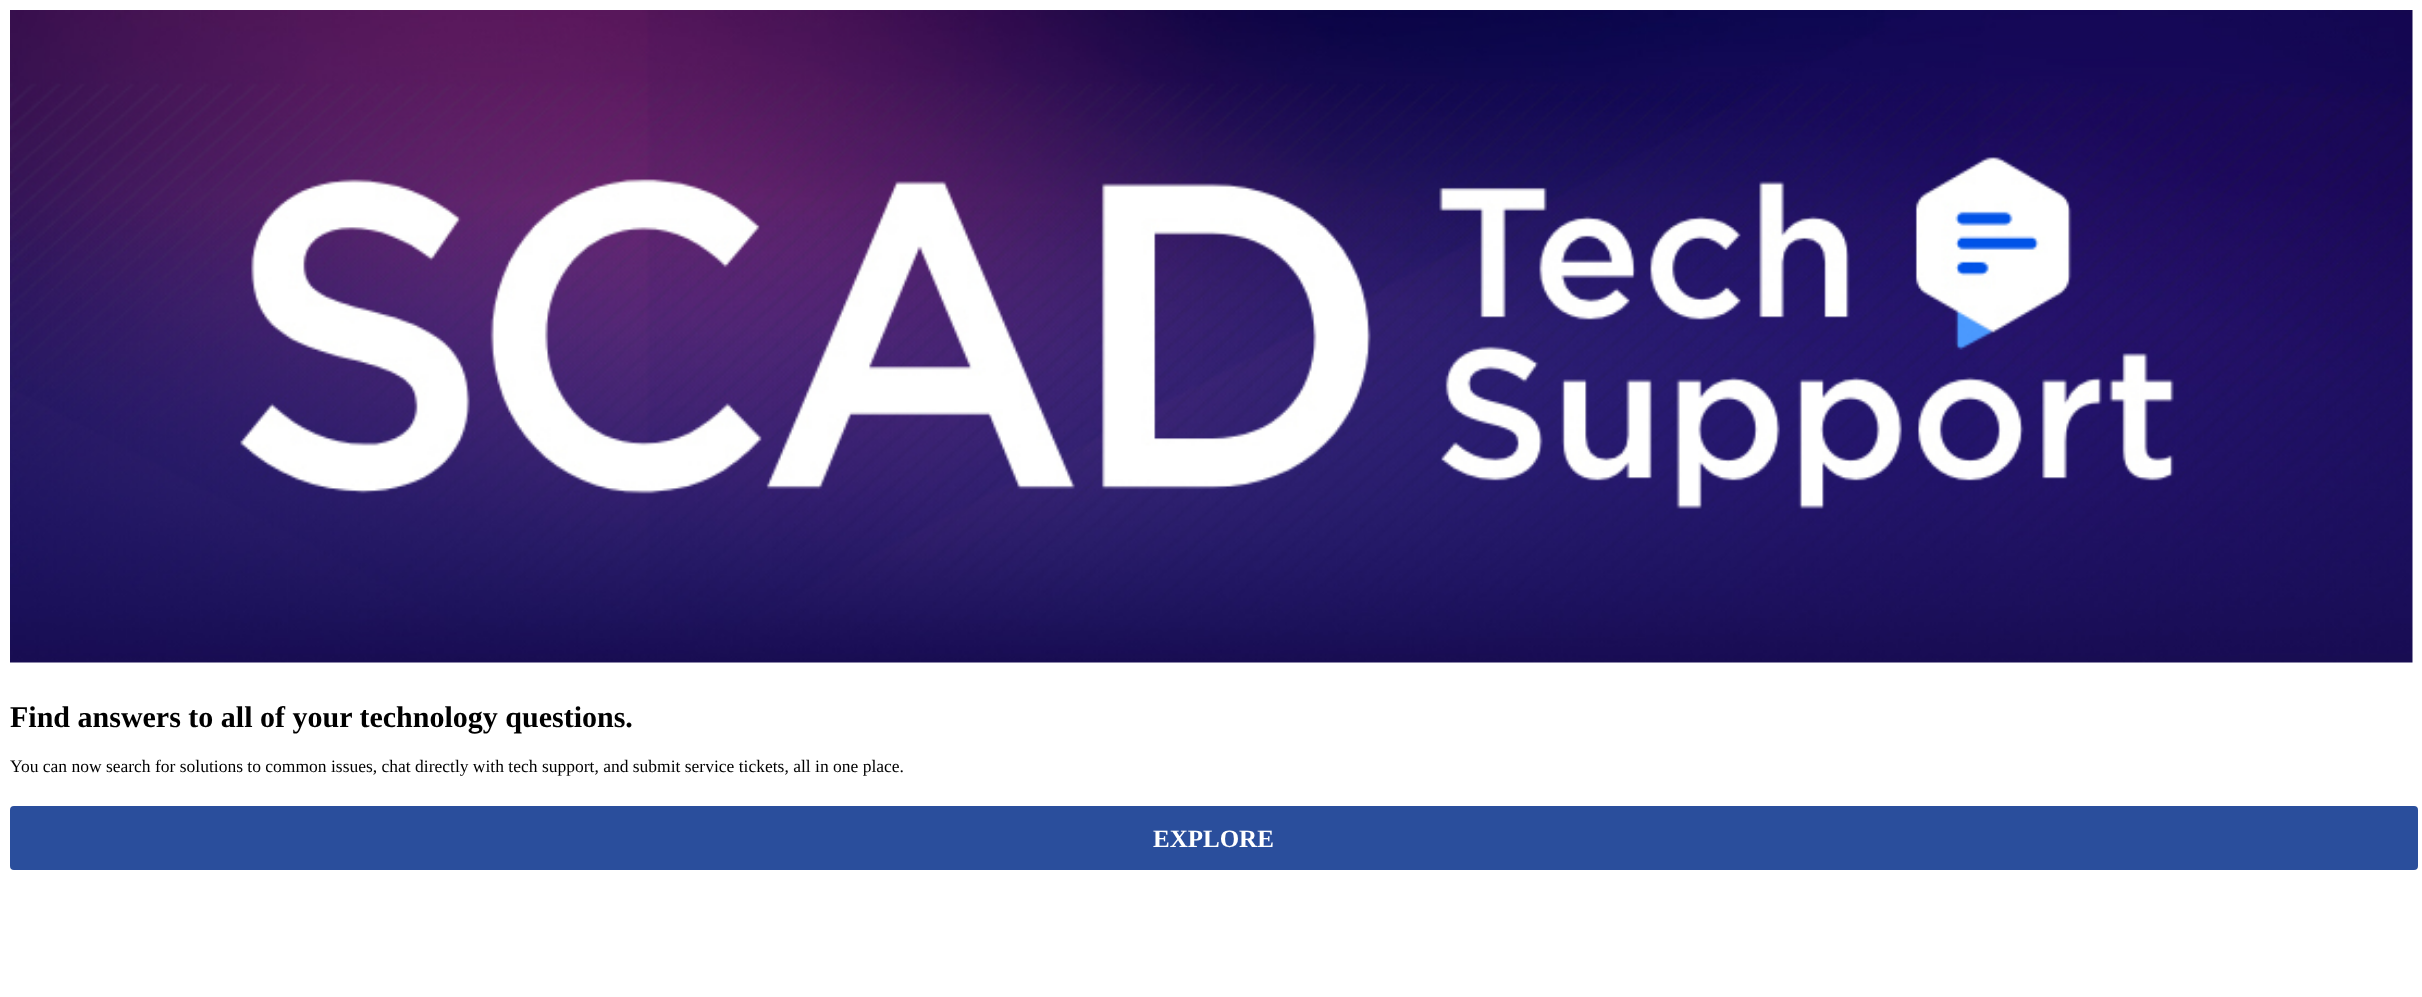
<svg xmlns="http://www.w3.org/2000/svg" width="2422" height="997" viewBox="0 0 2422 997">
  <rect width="100%" height="100%" fill="#fff"/>
  <image x="10" y="10" width="2403" height="653" href="img/1.png"/>
  <rect x="11.5" y="807.5" width="2405" height="61" rx="2.5" fill="#2a4e9c" stroke="#2a4e9c" stroke-width="3"/>
  <text x="10" y="727" font-family="Liberation Serif" font-size="30" font-weight="bold" fill="#000">Find answers to all of your technology questions.</text>
  <text x="10" y="772" font-family="Liberation Serif" font-size="17.5" fill="#000">You can now search for solutions to common issues, chat directly with tech support, and submit service tickets, all in one place.</text>
  <text x="1153" y="847" font-family="Liberation Serif" font-size="25" font-weight="bold" fill="#fff">EXPLORE</text>
</svg>
